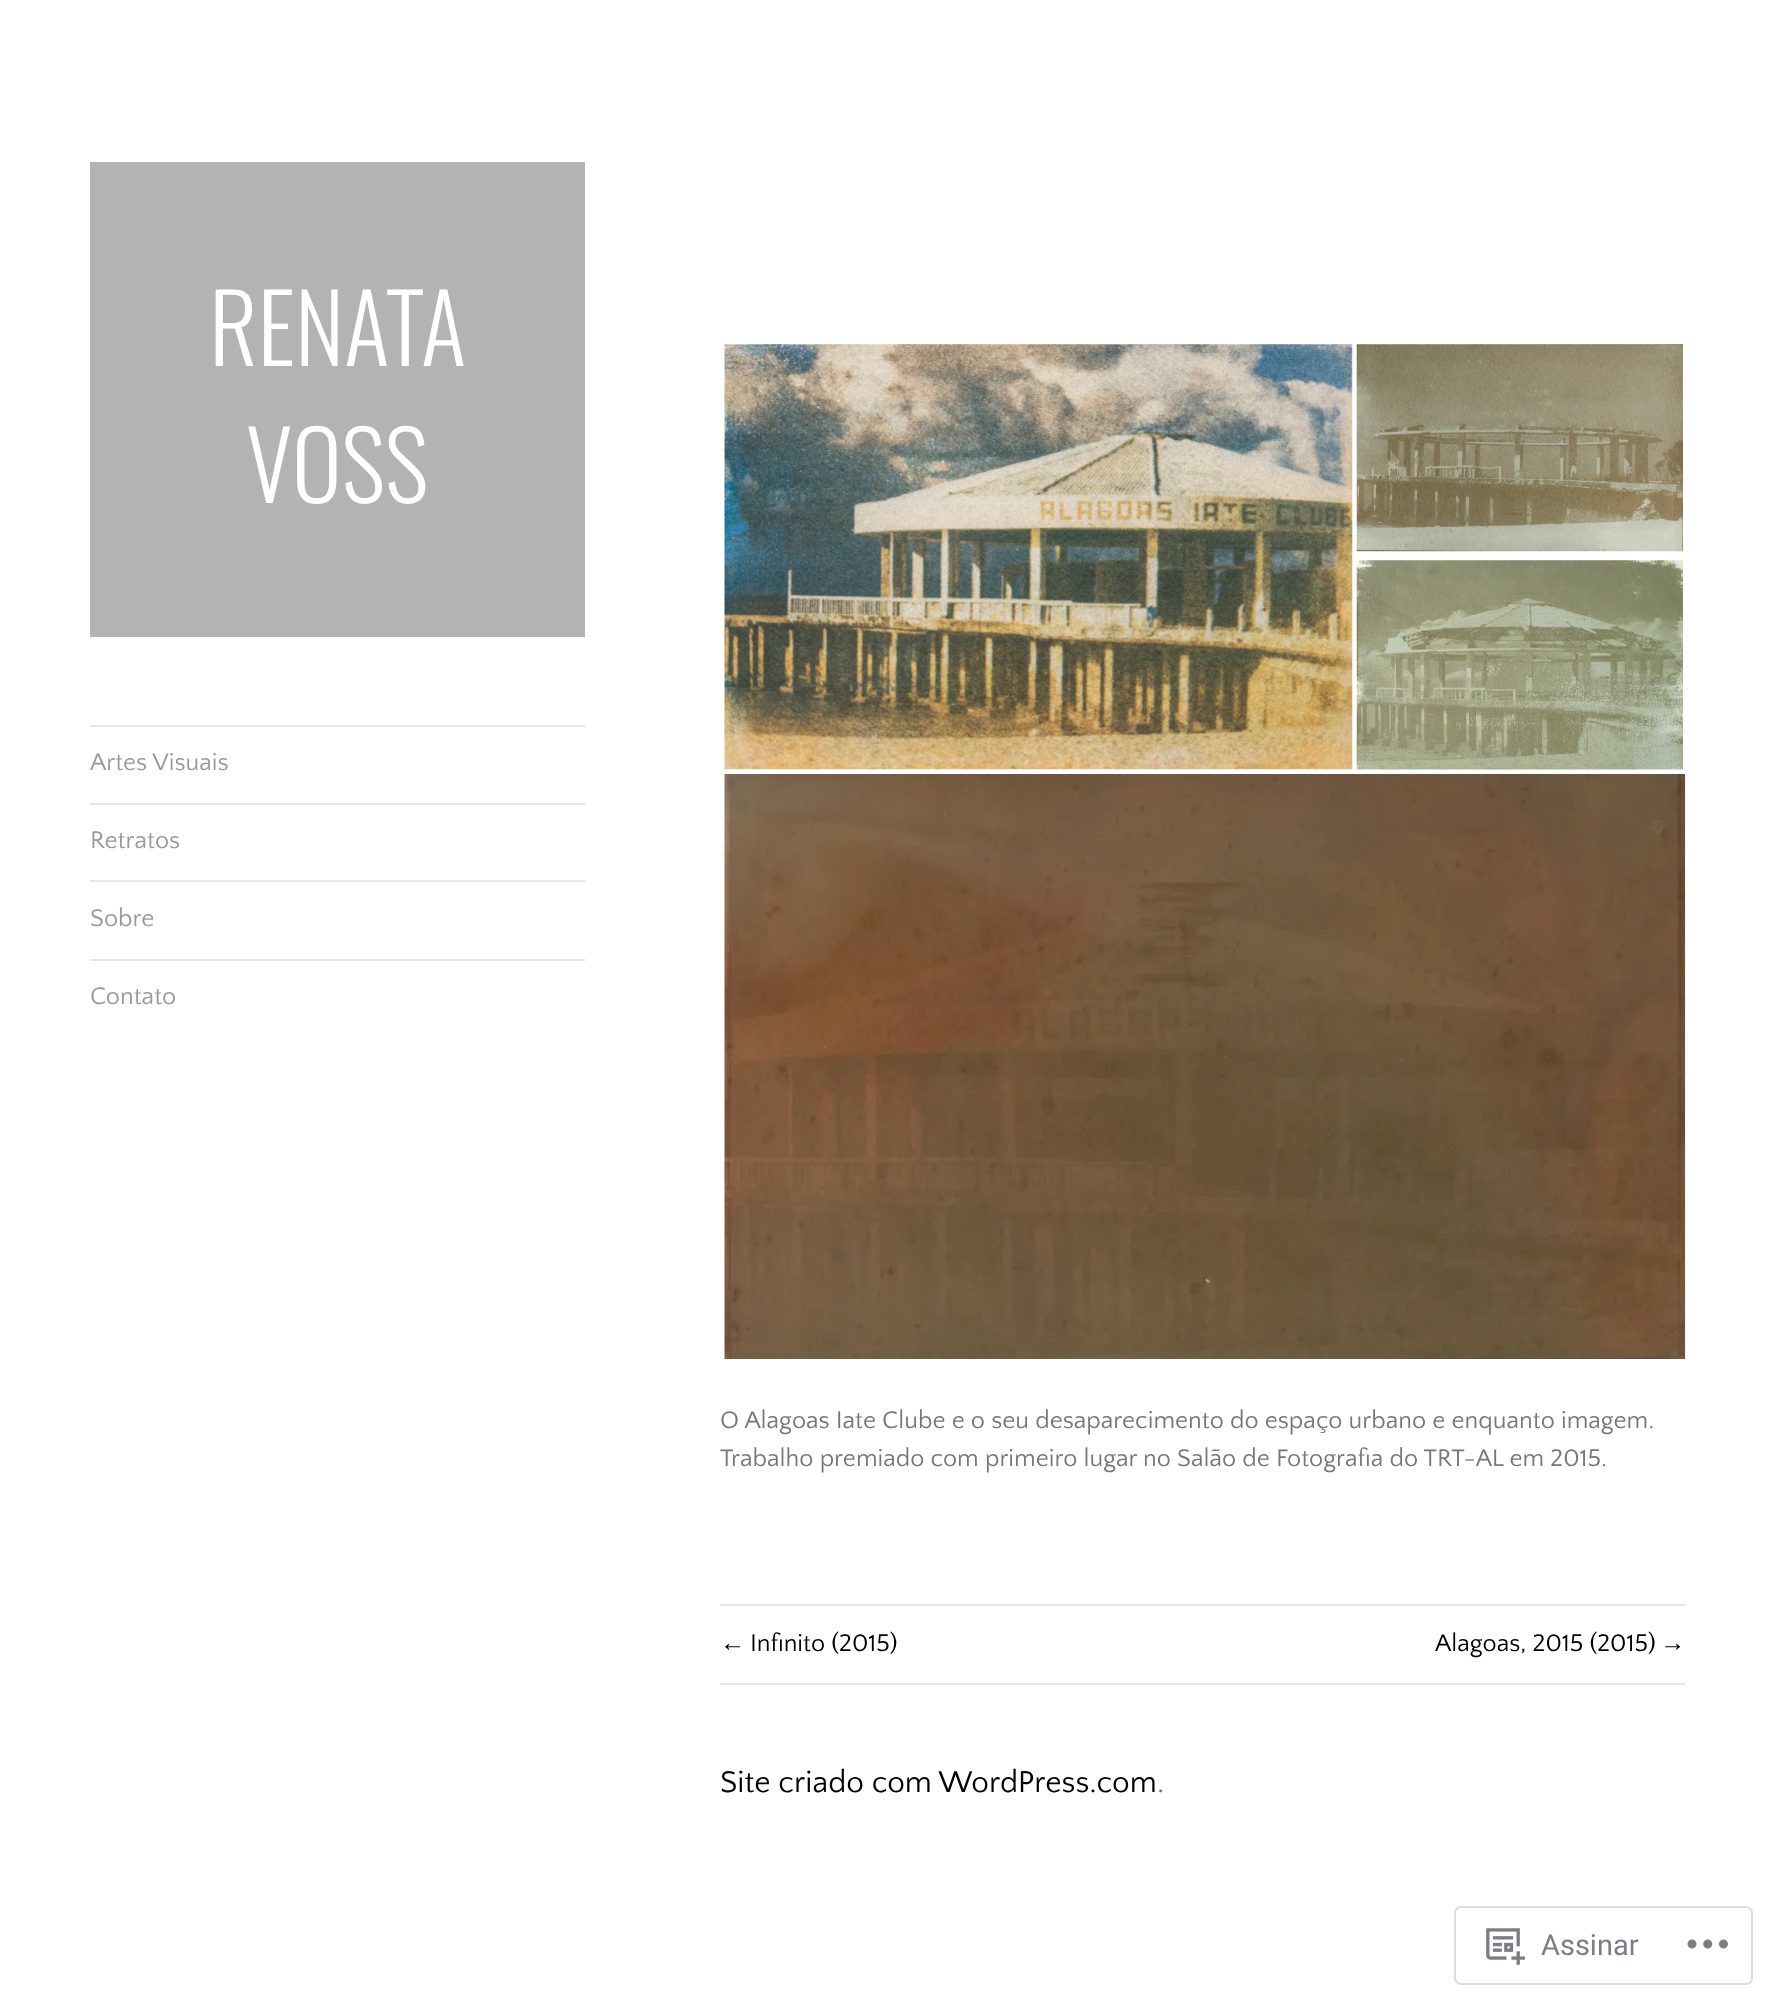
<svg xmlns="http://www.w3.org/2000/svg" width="1774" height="2005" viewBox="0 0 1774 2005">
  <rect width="100%" height="100%" fill="#fff"/>
  <path d="M90 162h495v475H90z" fill="#b3b3b3"/>
  <path d="M90 725h495v2H90z" fill="#e6e6e6"/>
  <path d="M90 803h495v2H90z" fill="#e6e6e6"/>
  <path d="M90 880h495v2H90z" fill="#e6e6e6"/>
  <path d="M90 959h495v2H90z" fill="#e6e6e6"/>
  <image x="724" y="344" width="629" height="426" href="img/1.png"/>
  <image x="1356" y="344" width="327" height="208" href="img/2.png"/>
  <image x="1356" y="560" width="327" height="210" href="img/3.png"/>
  <image x="724" y="774" width="962" height="585" href="img/4.png"/>
  <path d="M720 1604h965v2H720z" fill="#e6e6e6"/>
  <path d="M720 1683h965v2H720z" fill="#e6e6e6"/>
  <rect x="1455" y="1907" width="297" height="77" rx="6" fill="none" stroke="#dddddf" stroke-width="2"/>
  <image x="1486" y="1928" width="39" height="37" href="img/5.png"/>
  <image x="1687" y="1939" width="41" height="10" href="img/6.png"/>
  <g font-family="Oswald" font-size="94.5" font-weight="300" fill="#fff">
    <text x="209" y="366">RENATA</text>
    <text x="246" y="503">VOSS</text>
  </g>
  <g font-family="Quattrocento Sans" font-size="25.2" fill="#999">
    <text x="90" y="770">Artes Visuais</text>
    <text x="90" y="848">Retratos</text>
    <text x="90" y="926">Sobre</text>
    <text x="90" y="1004">Contato</text>
  </g>
  <g font-family="Quattrocento Sans" font-size="25.2" fill="#777">
    <text x="720" y="1428">O Alagoas Iate Clube e o seu desaparecimento do espaço urbano e enquanto imagem.</text>
    <text x="720" y="1466">Trabalho premiado com primeiro lugar no Salão de Fotografia do TRT-AL em 2015.</text>
  </g>
  <text x="720" y="1651" font-family="Liberation Sans" font-size="25.2" fill="#000">←</text>
  <g font-family="Quattrocento Sans" font-size="25.2" fill="#000">
    <text x="750" y="1651">Infinito (2015)</text>
    <text x="1435" y="1651">Alagoas, 2015 (2015)</text>
  </g>
  <text x="1660" y="1651" font-family="Liberation Sans" font-size="25.2" fill="#000">→</text>
  <text x="720" y="1792" font-family="Quattrocento Sans" font-size="31.5" fill="#000">Site criado com WordPress.com</text>
  <text x="1157" y="1792" font-family="Quattrocento Sans" font-size="31.5" fill="#777">.</text>
  <text x="1541" y="1955" font-family="Roboto" font-size="29" fill="#7b7f85">Assinar</text>
</svg>
